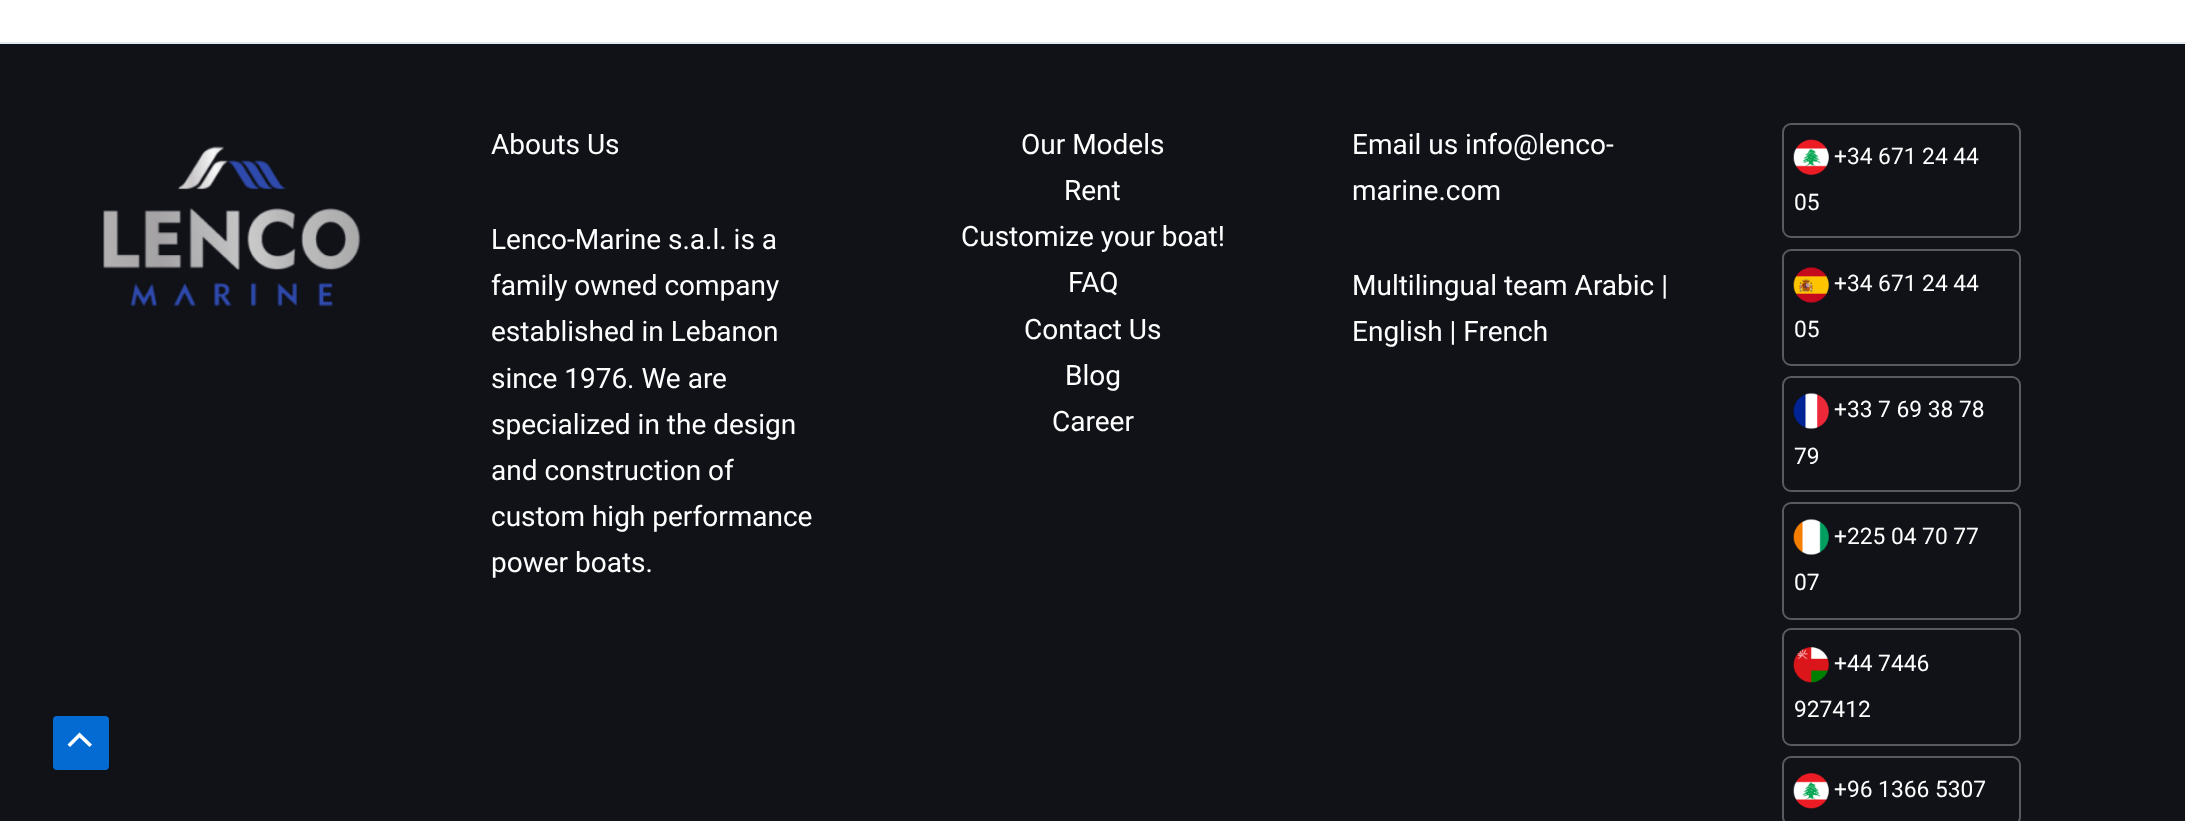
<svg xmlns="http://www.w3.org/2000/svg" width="2185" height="821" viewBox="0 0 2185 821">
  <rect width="100%" height="100%" fill="#fff"/>
  <path d="M0 44h2185v777H0z" fill="#101218"/>
  <rect x="53" y="716" width="56" height="54" rx="4" fill="#046bd2"/>
  <path d="M92 744.5L79.5 732.5L67.5 744.5L70 747L79.5 737.5L89.5 747Z" fill="#fff"/>
  <path d="M0 42h2185v2H0z" fill="#e2e8f0"/>
  <image x="103" y="146" width="258" height="161" href="img/1.png"/>
  <rect x="1783" y="124" width="237" height="113" rx="8" fill="none" stroke="#595a5e" stroke-width="2"/>
  <image x="1793" y="139" width="36" height="36" href="img/2.png"/>
  <rect x="1783" y="250" width="237" height="115" rx="8" fill="none" stroke="#595a5e" stroke-width="2"/>
  <image x="1793" y="267" width="36" height="36" href="img/3.png"/>
  <rect x="1783" y="377" width="237" height="114" rx="8" fill="none" stroke="#595a5e" stroke-width="2"/>
  <image x="1793" y="393" width="36" height="36" href="img/4.png"/>
  <rect x="1783" y="503" width="237" height="116" rx="8" fill="none" stroke="#595a5e" stroke-width="2"/>
  <image x="1793" y="519" width="36" height="36" href="img/5.png"/>
  <rect x="1783" y="629" width="237" height="116" rx="8" fill="none" stroke="#595a5e" stroke-width="2"/>
  <image x="1793" y="647" width="36" height="36" href="img/6.png"/>
  <rect x="1783" y="757" width="237" height="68" rx="8" fill="none" stroke="#595a5e" stroke-width="2"/>
  <image x="1793" y="773" width="36" height="36" href="img/7.png"/>
  <g font-family="Roboto" font-size="28" fill="#fff">
    <text x="491" y="154">Abouts Us</text>
    <text x="491" y="249">Lenco-Marine s.a.l. is a</text>
    <text x="491" y="295">family owned company</text>
    <text x="491" y="341">established in Lebanon</text>
    <text x="491" y="388">since 1976. We are</text>
    <text x="491" y="434">specialized in the design</text>
    <text x="491" y="480">and construction of</text>
    <text x="491" y="526">custom high performance</text>
    <text x="491" y="572">power boats.</text>
    <text x="1021" y="154">Our Models</text>
    <text x="1064" y="200">Rent</text>
    <text x="961" y="246">Customize your boat!</text>
    <text x="1068" y="292">FAQ</text>
    <text x="1024" y="339">Contact Us</text>
    <text x="1065" y="385">Blog</text>
    <text x="1052" y="431">Career</text>
    <text x="1352" y="154">Email us info@lenco-</text>
    <text x="1352" y="200">marine.com</text>
    <text x="1352" y="295">Multilingual team Arabic |</text>
    <text x="1352" y="341">English | French</text>
  </g>
  <g font-family="Roboto" font-size="22.75" fill="#fff">
    <text x="1834" y="164">+34 671 24 44</text>
    <text x="1794" y="210">05</text>
    <text x="1834" y="291">+34 671 24 44</text>
    <text x="1794" y="337">05</text>
    <text x="1834" y="417">+33 7 69 38 78</text>
    <text x="1794" y="464">79</text>
    <text x="1834" y="544">+225 04 70 77</text>
    <text x="1794" y="590">07</text>
    <text x="1834" y="671">+44 7446</text>
    <text x="1794" y="717">927412</text>
    <text x="1834" y="797">+96 1366 5307</text>
  </g>
</svg>
